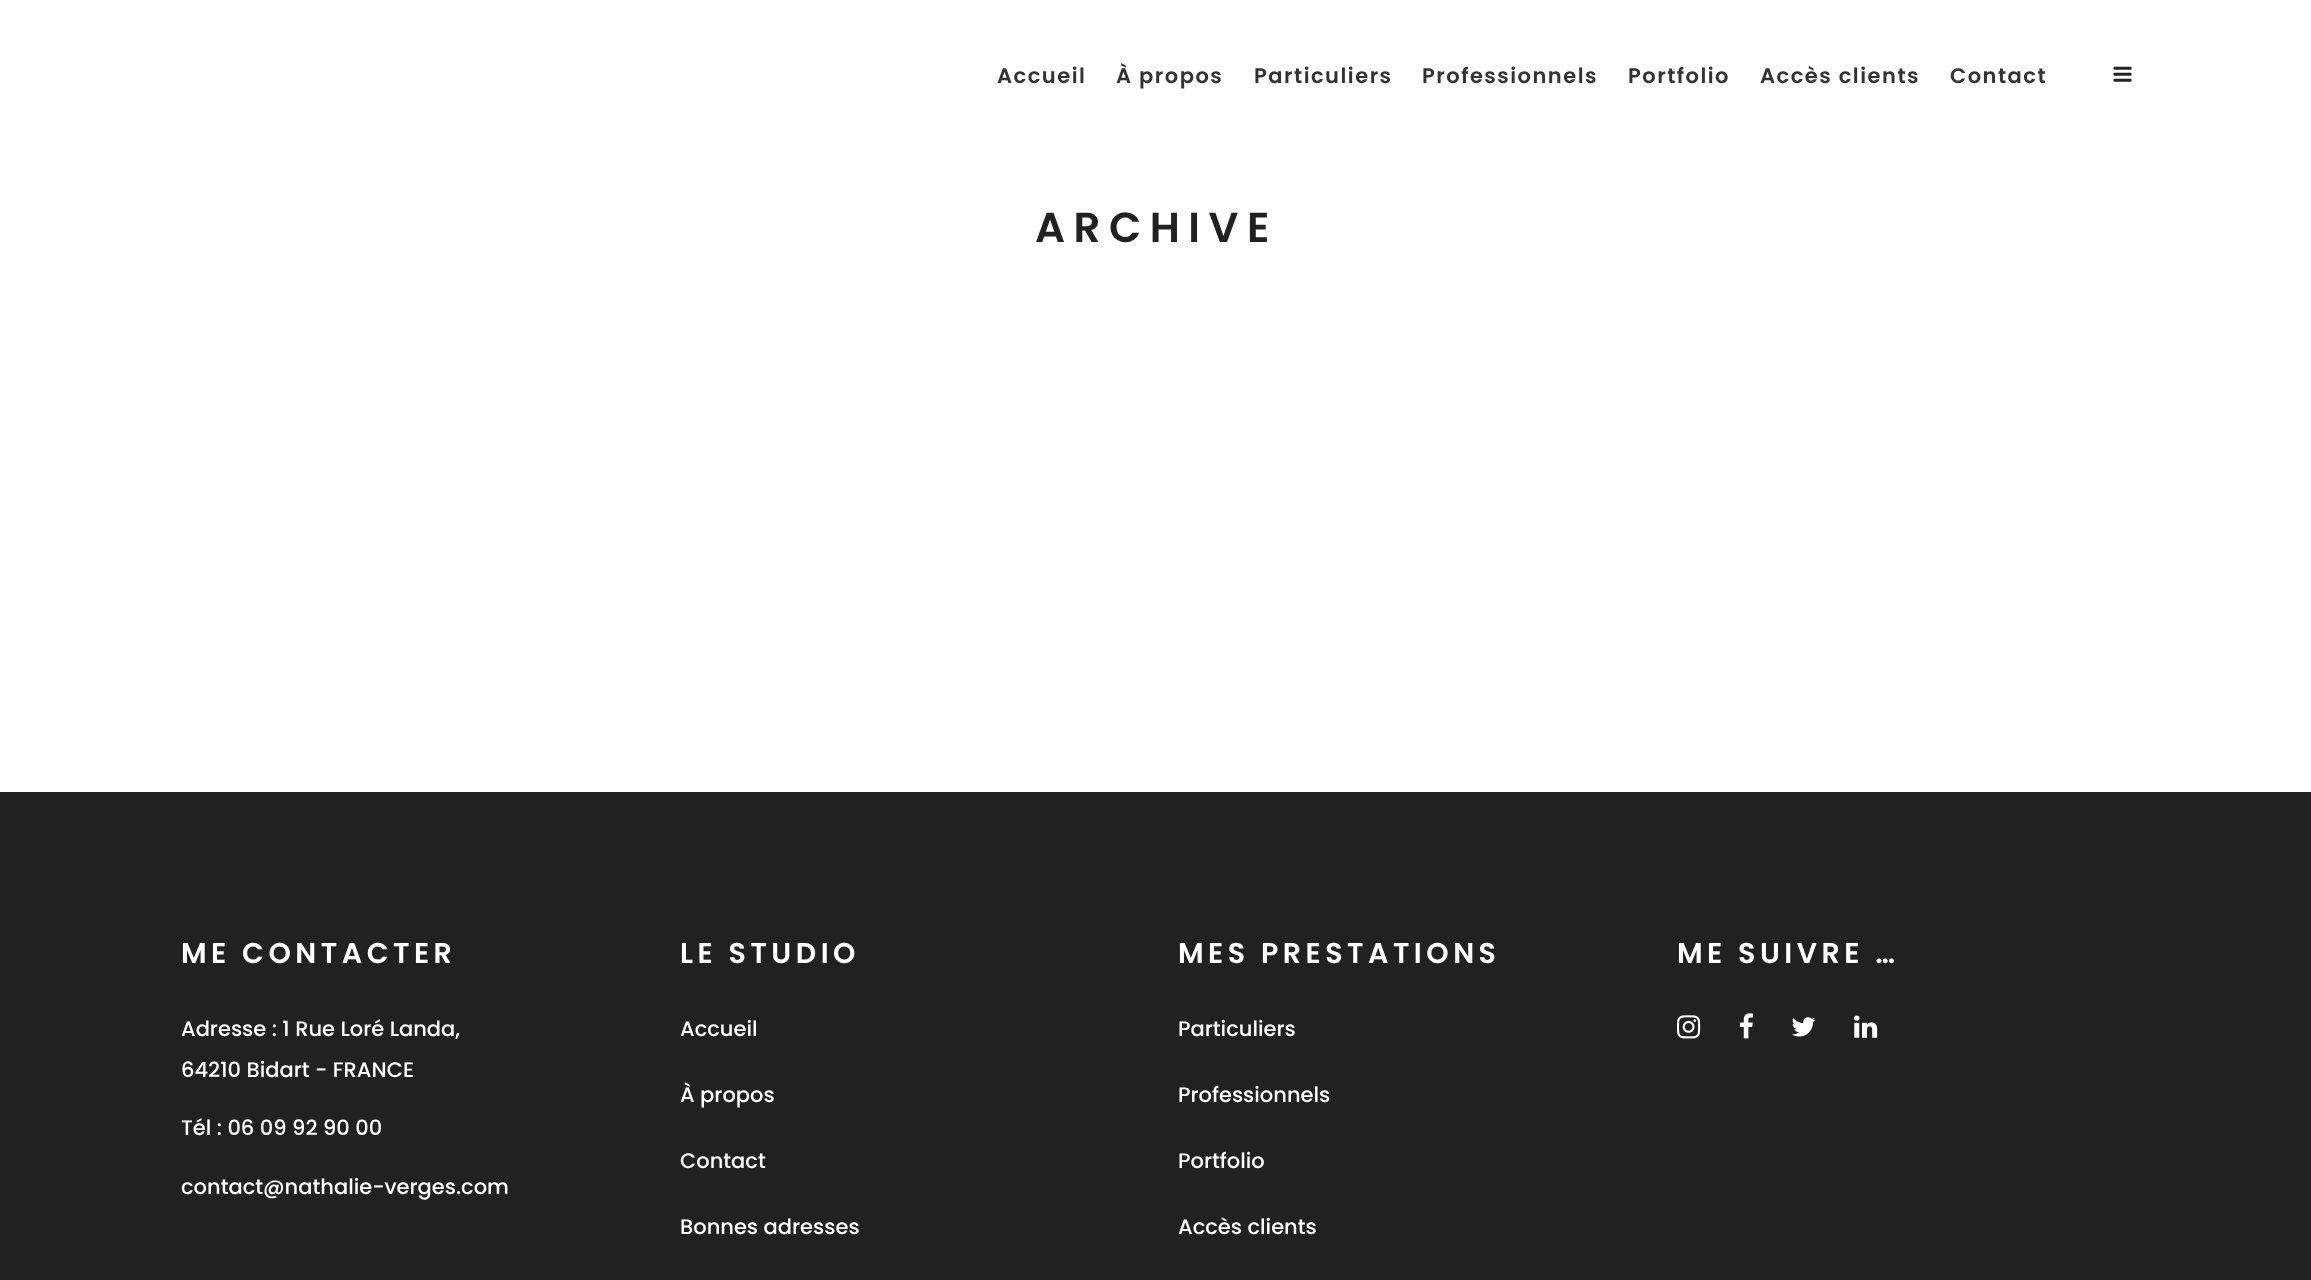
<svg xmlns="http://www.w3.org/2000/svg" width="2311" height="1280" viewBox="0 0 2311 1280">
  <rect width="100%" height="100%" fill="#fff"/>
  <image x="2113" y="66" width="19" height="16" href="img/1.png"/>
  <path d="M0 792h2311v488H0z" fill="#212121"/>
  <image x="1677" y="1015" width="24" height="24" href="img/2.png"/>
  <image x="1739" y="1013" width="14" height="26" href="img/3.png"/>
  <image x="1791" y="1017" width="25" height="20" href="img/4.png"/>
  <image x="1854" y="1015" width="24" height="23" href="img/5.png"/>
  <g font-family="Poppins" font-size="21" font-weight="600" letter-spacing="1.5" fill="#333">
    <text x="997" y="83">Accueil</text>
    <text x="1116" y="83">À propos</text>
    <text x="1254" y="83">Particuliers</text>
    <text x="1422" y="83">Professionnels</text>
    <text x="1628" y="83">Portfolio</text>
    <text x="1760" y="83">Accès clients</text>
    <text x="1950" y="83">Contact</text>
  </g>
  <text x="1035" y="242" font-family="Poppins" font-size="42" font-weight="600" letter-spacing="8.5" fill="#212121">ARCHIVE</text>
  <text x="181" y="963" font-family="Poppins" font-size="28.5" font-weight="600" letter-spacing="4.5" fill="#fff">ME CONTACTER</text>
  <g font-family="Poppins" font-size="21" font-weight="500" fill="#fff">
    <text x="181" y="1036">Adresse : 1 Rue Loré Landa,</text>
    <text x="181" y="1077">64210 Bidart - FRANCE</text>
    <text x="181" y="1135">Tél : 06 09 92 90 00</text>
    <text x="181" y="1194">contact@nathalie-verges.com</text>
  </g>
  <text x="680" y="963" font-family="Poppins" font-size="28.5" font-weight="600" letter-spacing="4.5" fill="#fff">LE STUDIO</text>
  <g font-family="Poppins" font-size="21" font-weight="500" fill="#fff">
    <text x="680" y="1036">Accueil</text>
    <text x="680" y="1102">À propos</text>
    <text x="680" y="1168">Contact</text>
    <text x="680" y="1234">Bonnes adresses</text>
  </g>
  <text x="1178" y="963" font-family="Poppins" font-size="28.5" font-weight="600" letter-spacing="4.5" fill="#fff">MES PRESTATIONS</text>
  <g font-family="Poppins" font-size="21" font-weight="500" fill="#fff">
    <text x="1178" y="1036">Particuliers</text>
    <text x="1178" y="1102">Professionnels</text>
    <text x="1178" y="1168">Portfolio</text>
    <text x="1178" y="1234">Accès clients</text>
  </g>
  <text x="1677" y="963" font-family="Poppins" font-size="28.5" font-weight="600" letter-spacing="4.5" fill="#fff">ME SUIVRE …</text>
</svg>
